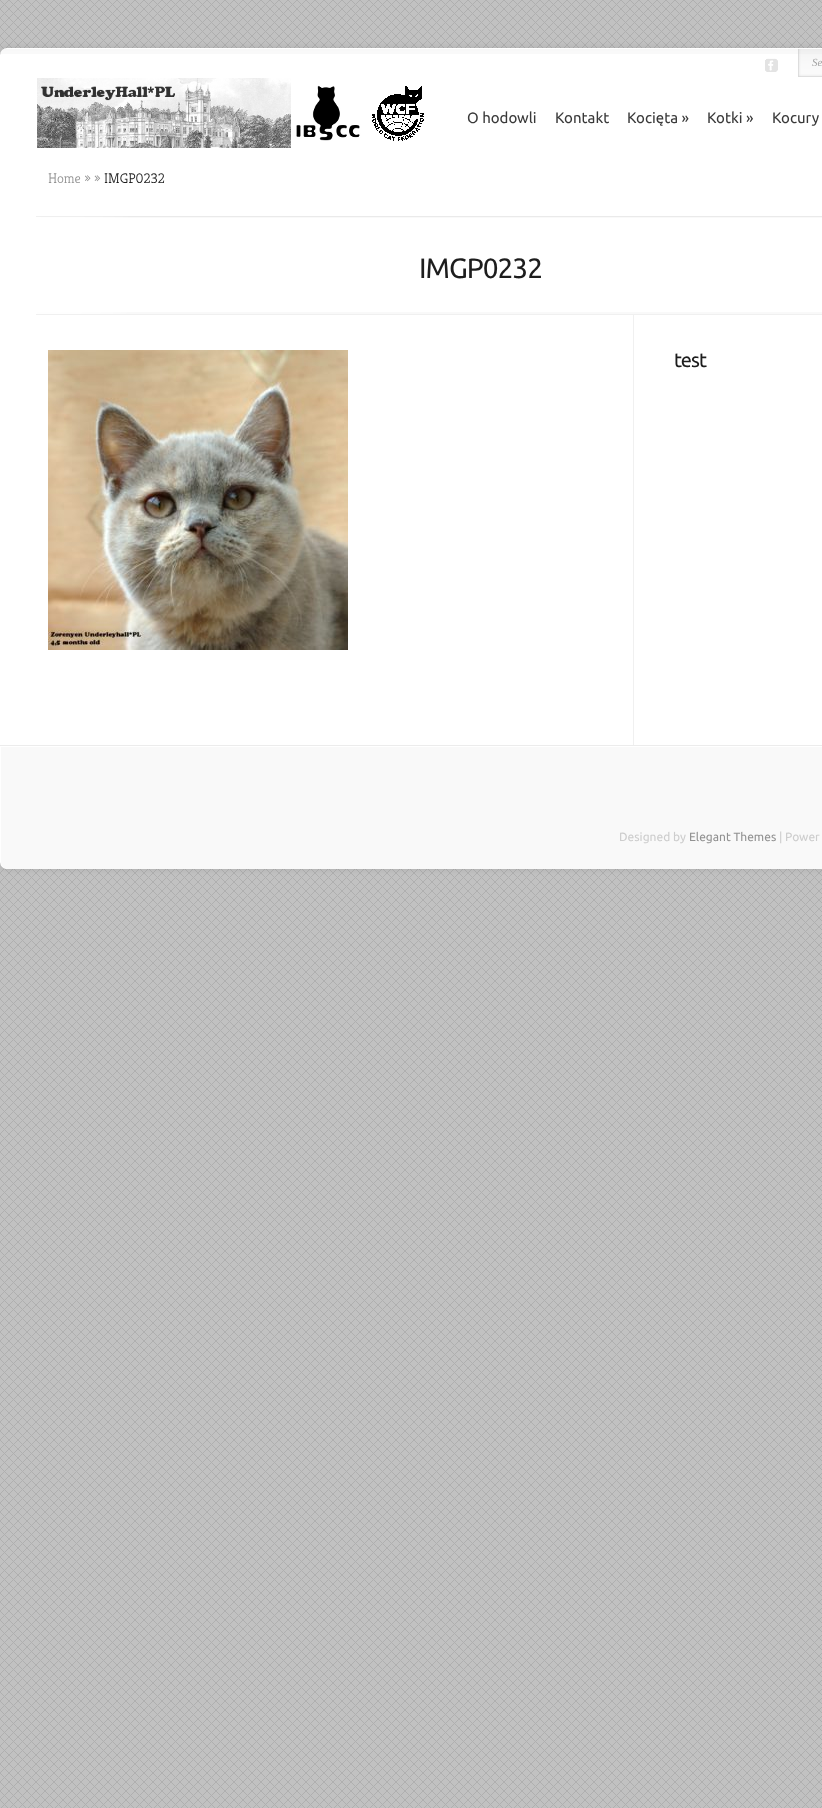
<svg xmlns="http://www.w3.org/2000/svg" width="822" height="1808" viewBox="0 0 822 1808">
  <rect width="100%" height="100%" fill="#c1c1c1"/>
  <image x="0" y="0" width="822" height="1808" href="img/1.png"/>
  <rect y="48" width="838" height="821" rx="7" fill="#0000001a" filter="blur(3px)"/>
  <rect y="48" width="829" height="821" rx="7" fill="#fff"/>
  <image x="1" y="49" width="821" height="5" href="img/2.png"/>
  <image x="765" y="58" width="13" height="14" href="img/3.png"/>
  <image x="798" y="49" width="24" height="28" href="img/4.png"/>
  <image x="37" y="78" width="387" height="70" href="img/5.png"/>
  <image x="36" y="216" width="786" height="2" href="img/6.png"/>
  <image x="36" y="312" width="786" height="3" href="img/7.png"/>
  <path d="M633 315h1v430H633z" fill="#f0f0f0"/>
  <image x="48" y="350" width="300" height="300" href="img/8.png"/>
  <path d="M0 745h822v1H0z" fill="#ececec"/>
  <path d="M1 747H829V862C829 866 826 869 822 869H8C4 869 1 866 1 862Z" fill="#f9f9f9"/>
  <text x="812" y="66" font-family="Liberation Serif" font-size="11" font-style="italic" fill="#a3a3a3">Se</text>
  <g font-family="Ubuntu" font-size="15" fill="#393939">
    <text x="467" y="123">O hodowli</text>
    <text x="555" y="123">Kontakt</text>
    <text x="627" y="123">Kocięta »</text>
    <text x="707" y="123">Kotki »</text>
    <text x="772" y="123">Kocury</text>
  </g>
  <text x="48" y="183" font-family="Kreon" font-size="14" font-weight="300" fill="#929292">Home » »</text>
  <text x="104" y="183" font-family="Kreon" font-size="14" font-weight="300" fill="#1d1d1d">IMGP0232</text>
  <text x="419" y="278" font-family="Ubuntu" font-size="28" letter-spacing="-1" fill="#1d1d1d">IMGP0232</text>
  <text x="674" y="367" font-family="Ubuntu" font-size="20" letter-spacing="-1" fill="#1d1d1d">test</text>
  <text x="619" y="841" font-family="Ubuntu" font-size="12" fill="#cdcdcd">Designed by</text>
  <text x="689" y="841" font-family="Ubuntu" font-size="12" fill="#929292">Elegant Themes</text>
  <text x="779" y="841" font-family="Ubuntu" font-size="12" fill="#cdcdcd">| Power</text>
</svg>
